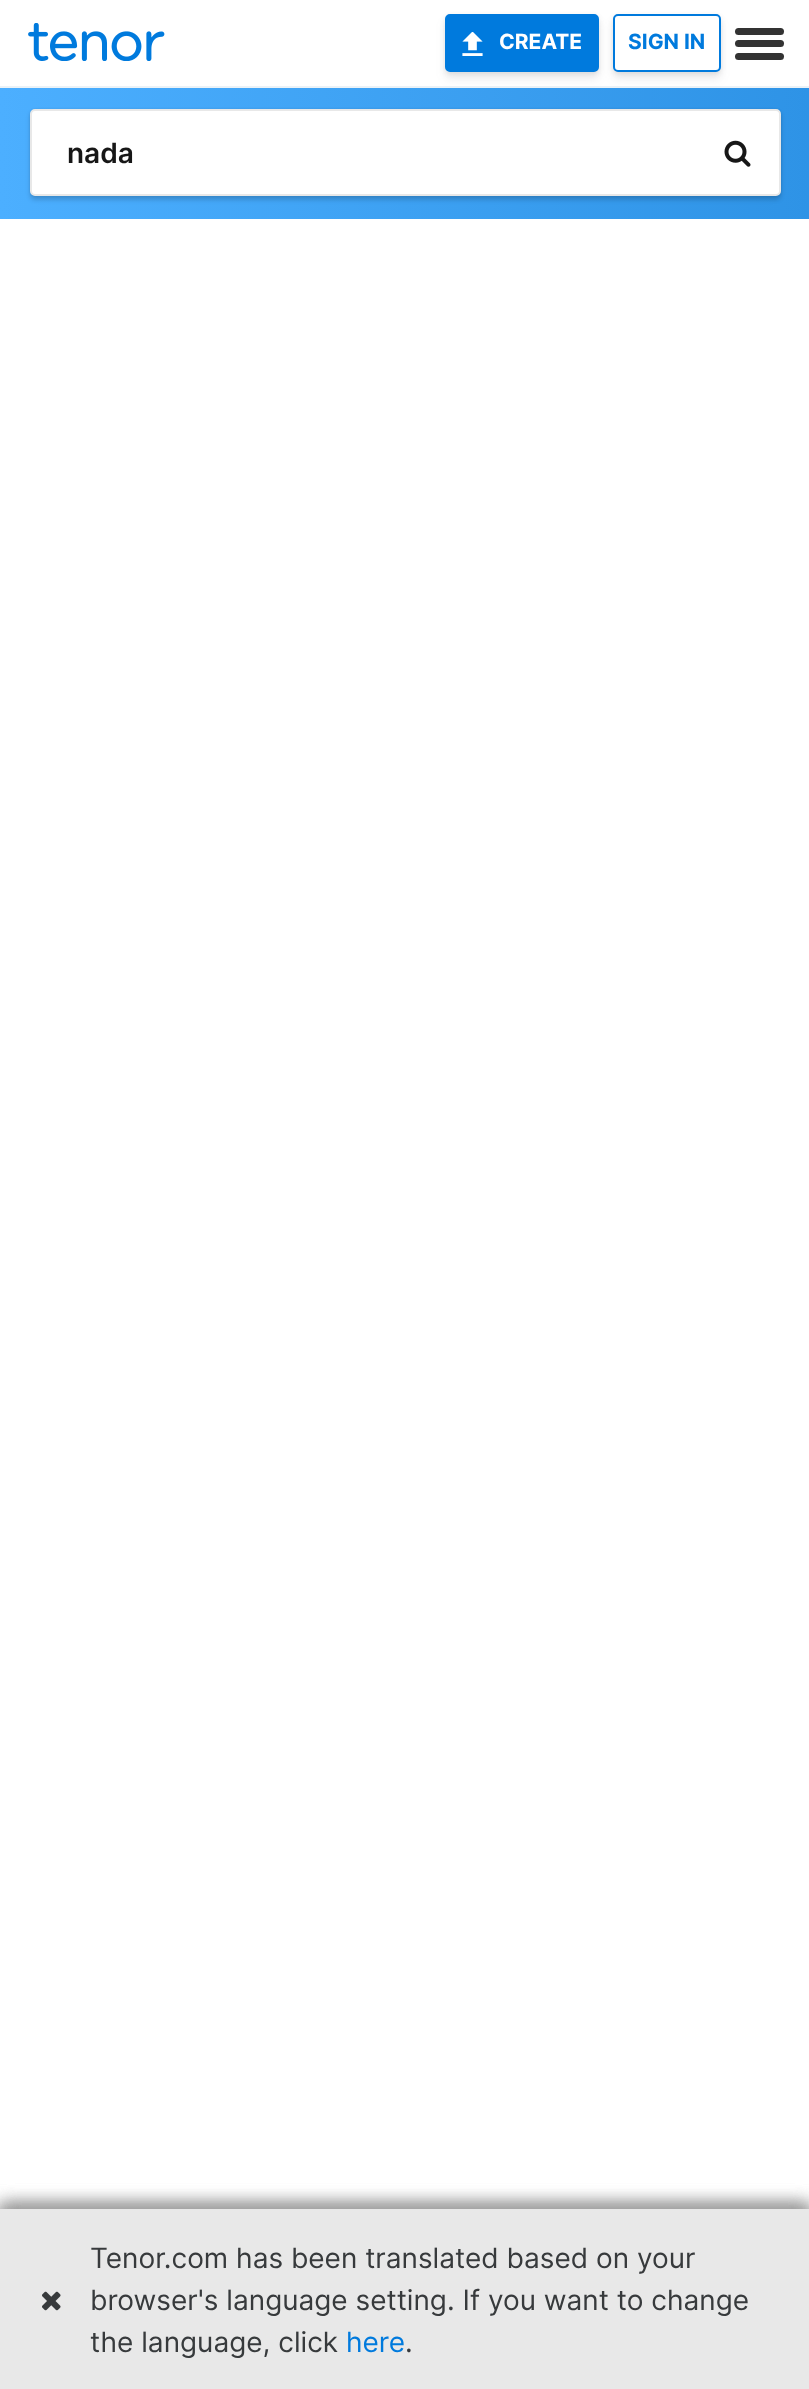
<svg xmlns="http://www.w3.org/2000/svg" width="809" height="2389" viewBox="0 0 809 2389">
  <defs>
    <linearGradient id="g1" gradientUnits="userSpaceOnUse" x1="0" y1="153" x2="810" y2="153"><stop offset="0" stop-color="#4cafff"/><stop offset="1" stop-color="#2e93e6"/></linearGradient>
  </defs>
  <rect width="100%" height="100%" fill="#fff"/>
  <path d="M0 86h809v2H0z" fill="#ebf2f7"/>
  <image x="28" y="23" width="137" height="38" href="img/1.png"/>
  <rect x="445" y="21" width="154" height="58" rx="5" fill="#53535c1c" filter="blur(5px)"/>
  <rect x="445" y="16" width="154" height="58" rx="5" fill="#00000014" filter="blur(2.5px)"/>
  <rect x="446" y="15" width="152" height="56" rx="4" fill="#007add" stroke="#007add" stroke-width="2"/>
  <image x="462" y="32" width="21" height="24" href="img/2.png"/>
  <rect x="613" y="21" width="108" height="58" rx="5" fill="#53535c1c" filter="blur(5px)"/>
  <rect x="613" y="16" width="108" height="58" rx="5" fill="#00000014" filter="blur(2.5px)"/>
  <rect x="614" y="15" width="106" height="56" rx="4" fill="#fff" stroke="#007add" stroke-width="2"/>
  <rect x="735" y="40" width="49" height="7" rx="3.5" fill="#333"/>
  <rect x="735" y="28" width="49" height="7" rx="3.5" fill="#333"/>
  <rect x="735" y="53" width="49" height="7" rx="3.5" fill="#333"/>
  <path d="M0 88h809v131H0z" fill="url(#g1)"/>
  <rect x="30" y="109" width="751" height="87" rx="5" fill="#00000014" filter="blur(1px)"/>
  <rect x="30" y="112" width="751" height="88" rx="5" fill="#00000029" filter="blur(2px)"/>
  <rect x="31" y="110" width="749" height="85" rx="4" fill="#fff" stroke="#e8e8e8" stroke-width="2"/>
  <image x="724" y="140" width="27" height="27" href="img/3.png"/>
  <path d="M0 2205h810v182H0z" fill="#999" filter="blur(9px)"/>
  <path d="M0 2205h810v182H0z" fill="#999" filter="blur(9px)"/>
  <path d="M0 2209h809v180H0z" fill="#e8e8e8"/>
  <image x="42" y="2291" width="19" height="20" href="img/4.png"/>
  <text x="499" y="49" font-family="Inter" font-size="21" font-weight="bold" fill="#fff">CREATE</text>
  <text x="628" y="49" font-family="Inter" font-size="21" font-weight="bold" fill="#007add">SIGN IN</text>
  <text x="67" y="163" font-family="Inter" font-size="28" font-weight="600" fill="#171717">nada</text>
  <g font-family="Inter" font-size="28" fill="#373a3c">
    <text x="90" y="2268">Tenor.com has been translated based on your</text>
    <text x="90" y="2310">browser's language setting. If you want to change</text>
    <text x="90" y="2352">the language, click</text>
  </g>
  <text x="346" y="2352" font-family="Inter" font-size="28" fill="#007add">here</text>
  <text x="405" y="2352" font-family="Inter" font-size="28" fill="#373a3c">.</text>
</svg>
